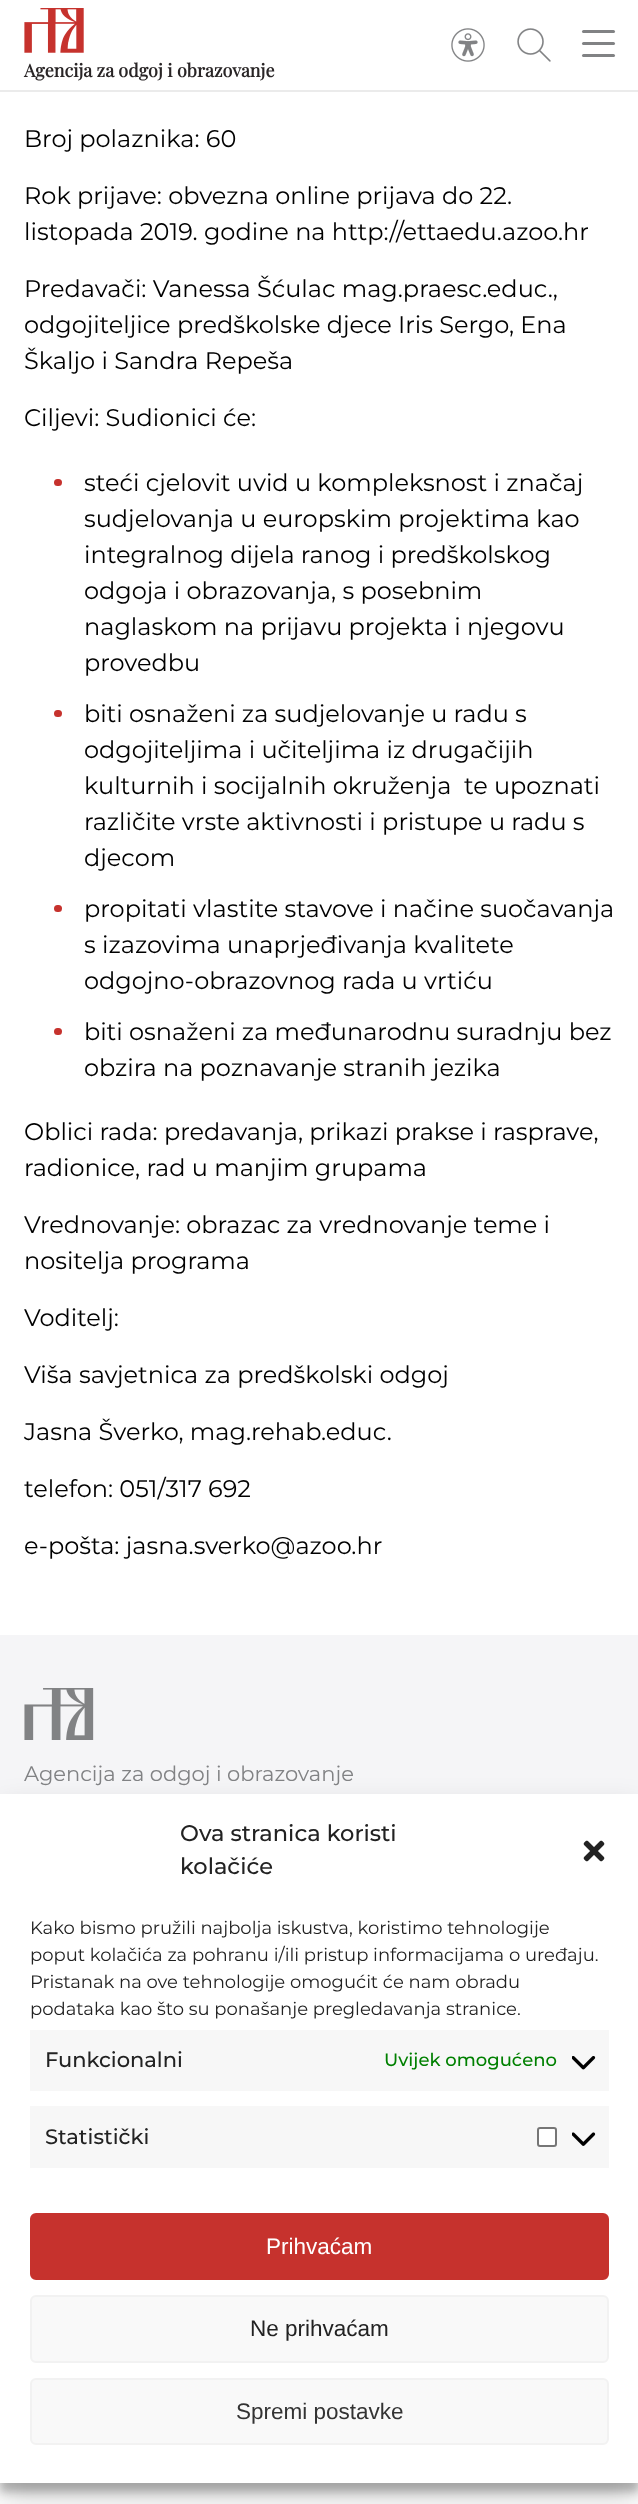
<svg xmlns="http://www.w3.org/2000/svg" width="638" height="2504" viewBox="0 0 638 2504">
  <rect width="100%" height="100%" fill="#fff"/>
  <path d="M0 90h638v2H0z" fill="#ebebeb"/>
  <image x="451" y="28" width="34" height="34" href="img/1.png"/>
  <image x="517" y="28" width="34" height="34" href="img/2.png"/>
  <rect x="582" y="30" width="33" height="3" rx="1.5" fill="#818284"/>
  <rect x="582" y="42" width="33" height="3" rx="1.5" fill="#818284"/>
  <rect x="582" y="54" width="33" height="3" rx="1.5" fill="#818284"/>
  <image x="24" y="8" width="60" height="45" href="img/3.png"/>
  <rect x="54" y="479" width="8" height="7" rx="3.5" fill="#c6322d"/>
  <rect x="54" y="710" width="8" height="7" rx="3.5" fill="#c6322d"/>
  <rect x="54" y="905" width="8" height="7" rx="3.5" fill="#c6322d"/>
  <rect x="54" y="1028" width="8" height="7" rx="3.5" fill="#c6322d"/>
  <path d="M0 1635h638v159H0z" fill="#f5f5f7"/>
  <image x="24" y="1688" width="70" height="52" href="img/4.png"/>
  <path d="M0 1803h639v689H0z" fill="#0000003b" filter="blur(4.5px)"/>
  <path d="M0 1809h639v689H0z" fill="#00000030" filter="blur(15px)"/>
  <path d="M0 1794h638v689H0z" fill="#fff"/>
  <image x="583" y="1840" width="22" height="22" href="img/5.png"/>
  <path d="M30 2030h579v61H30z" fill="#f7f7f7"/>
  <image x="572" y="2056" width="24" height="14" href="img/6.png"/>
  <path d="M30 2106h579v62H30z" fill="#f7f7f7"/>
  <rect x="538" y="2128" width="18" height="18" rx="2" fill="#fff" stroke="#767676" stroke-width="2"/>
  <image x="572" y="2132" width="24" height="14" href="img/7.png"/>
  <rect x="31" y="2214" width="577" height="65" rx="5" fill="#c6322d" stroke="#c6322d" stroke-width="2"/>
  <rect x="31" y="2296" width="577" height="66" rx="5" fill="#f9f9f9" stroke="#f2f2f2" stroke-width="2"/>
  <rect x="31" y="2379" width="577" height="65" rx="5" fill="#f9f9f9" stroke="#f2f2f2" stroke-width="2"/>
  <text x="24" y="77" font-family="Playfair Display" font-size="18" font-weight="bold" fill="#292526">Agencija za odgoj i obrazovanje</text>
  <g font-family="Montserrat" font-size="24" fill="#000">
    <text x="24" y="147">Broj polaznika: 60</text>
    <text x="24" y="204">Rok prijave: obvezna online prijava do 22.</text>
    <text x="24" y="240">listopada 2019. godine na http://ettaedu.azoo.hr</text>
    <text x="24" y="297">Predavači: Vanessa Šćulac mag.praesc.educ.,</text>
    <text x="24" y="333">odgojiteljice predškolske djece Iris Sergo, Ena</text>
    <text x="24" y="369">Škaljo i Sandra Repeša</text>
    <text x="24" y="426">Ciljevi: Sudionici će:</text>
    <text x="84" y="491">steći cjelovit uvid u kompleksnost i značaj</text>
    <text x="84" y="527">sudjelovanja u europskim projektima kao</text>
    <text x="84" y="563">integralnog dijela ranog i predškolskog</text>
    <text x="84" y="599">odgoja i obrazovanja, s posebnim</text>
    <text x="84" y="635">naglaskom na prijavu projekta i njegovu</text>
    <text x="84" y="671">provedbu</text>
    <text x="84" y="722">biti osnaženi za sudjelovanje u radu s</text>
    <text x="84" y="758">odgojiteljima i učiteljima iz drugačijih</text>
    <text x="84" y="794" xml:space="preserve">kulturnih i socijalnih okruženja  te upoznati</text>
    <text x="84" y="830">različite vrste aktivnosti i pristupe u radu s</text>
    <text x="84" y="866">djecom</text>
    <text x="84" y="917">propitati vlastite stavove i načine suočavanja</text>
    <text x="84" y="953">s izazovima unaprjeđivanja kvalitete</text>
    <text x="84" y="989">odgojno-obrazovnog rada u vrtiću</text>
    <text x="84" y="1040">biti osnaženi za međunarodnu suradnju bez</text>
    <text x="84" y="1076">obzira na poznavanje stranih jezika</text>
    <text x="24" y="1140">Oblici rada: predavanja, prikazi prakse i rasprave,</text>
    <text x="24" y="1176">radionice, rad u manjim grupama</text>
    <text x="24" y="1233">Vrednovanje: obrazac za vrednovanje teme i</text>
    <text x="24" y="1269">nositelja programa</text>
    <text x="24" y="1326">Voditelj:</text>
    <text x="24" y="1383">Viša savjetnica za predškolski odgoj</text>
    <text x="24" y="1440">Jasna Šverko, mag.rehab.educ.</text>
    <text x="24" y="1497">telefon: 051/317 692</text>
    <text x="24" y="1554">e-pošta: jasna.sverko@azoo.hr</text>
  </g>
  <text x="24" y="1781" font-family="Montserrat" font-size="21" fill="#818284">Agencija za odgoj i obrazovanje</text>
  <g font-family="Montserrat" font-size="22.5" font-weight="500" fill="#222">
    <text x="180" y="1841">Ova stranica koristi</text>
    <text x="180" y="1874">kolačiće</text>
  </g>
  <g font-family="Montserrat" font-size="18" fill="#222">
    <text x="30" y="1934">Kako bismo pružili najbolja iskustva, koristimo tehnologije</text>
    <text x="30" y="1961">poput kolačića za pohranu i/ili pristup informacijama o uređaju.</text>
    <text x="30" y="1988">Pristanak na ove tehnologije omogućit će nam obradu</text>
    <text x="30" y="2015">podataka kao što su ponašanje pregledavanja stranice.</text>
  </g>
  <text x="45" y="2067" font-family="Montserrat" font-size="21" font-weight="500" fill="#222">Funkcionalni</text>
  <text x="384" y="2066" font-family="Montserrat" font-size="18" font-weight="500" fill="#008000">Uvijek omogućeno</text>
  <text x="45" y="2144" font-family="Montserrat" font-size="21" font-weight="500" fill="#222">Statistički</text>
  <text x="266" y="2254" font-family="Liberation Sans" font-size="22.5" fill="#fff">Prihvaćam</text>
  <text x="250" y="2336" font-family="Liberation Sans" font-size="22.5" fill="#222">Ne prihvaćam</text>
  <text x="236" y="2419" font-family="Liberation Sans" font-size="22.5" fill="#333">Spremi postavke</text>
</svg>
